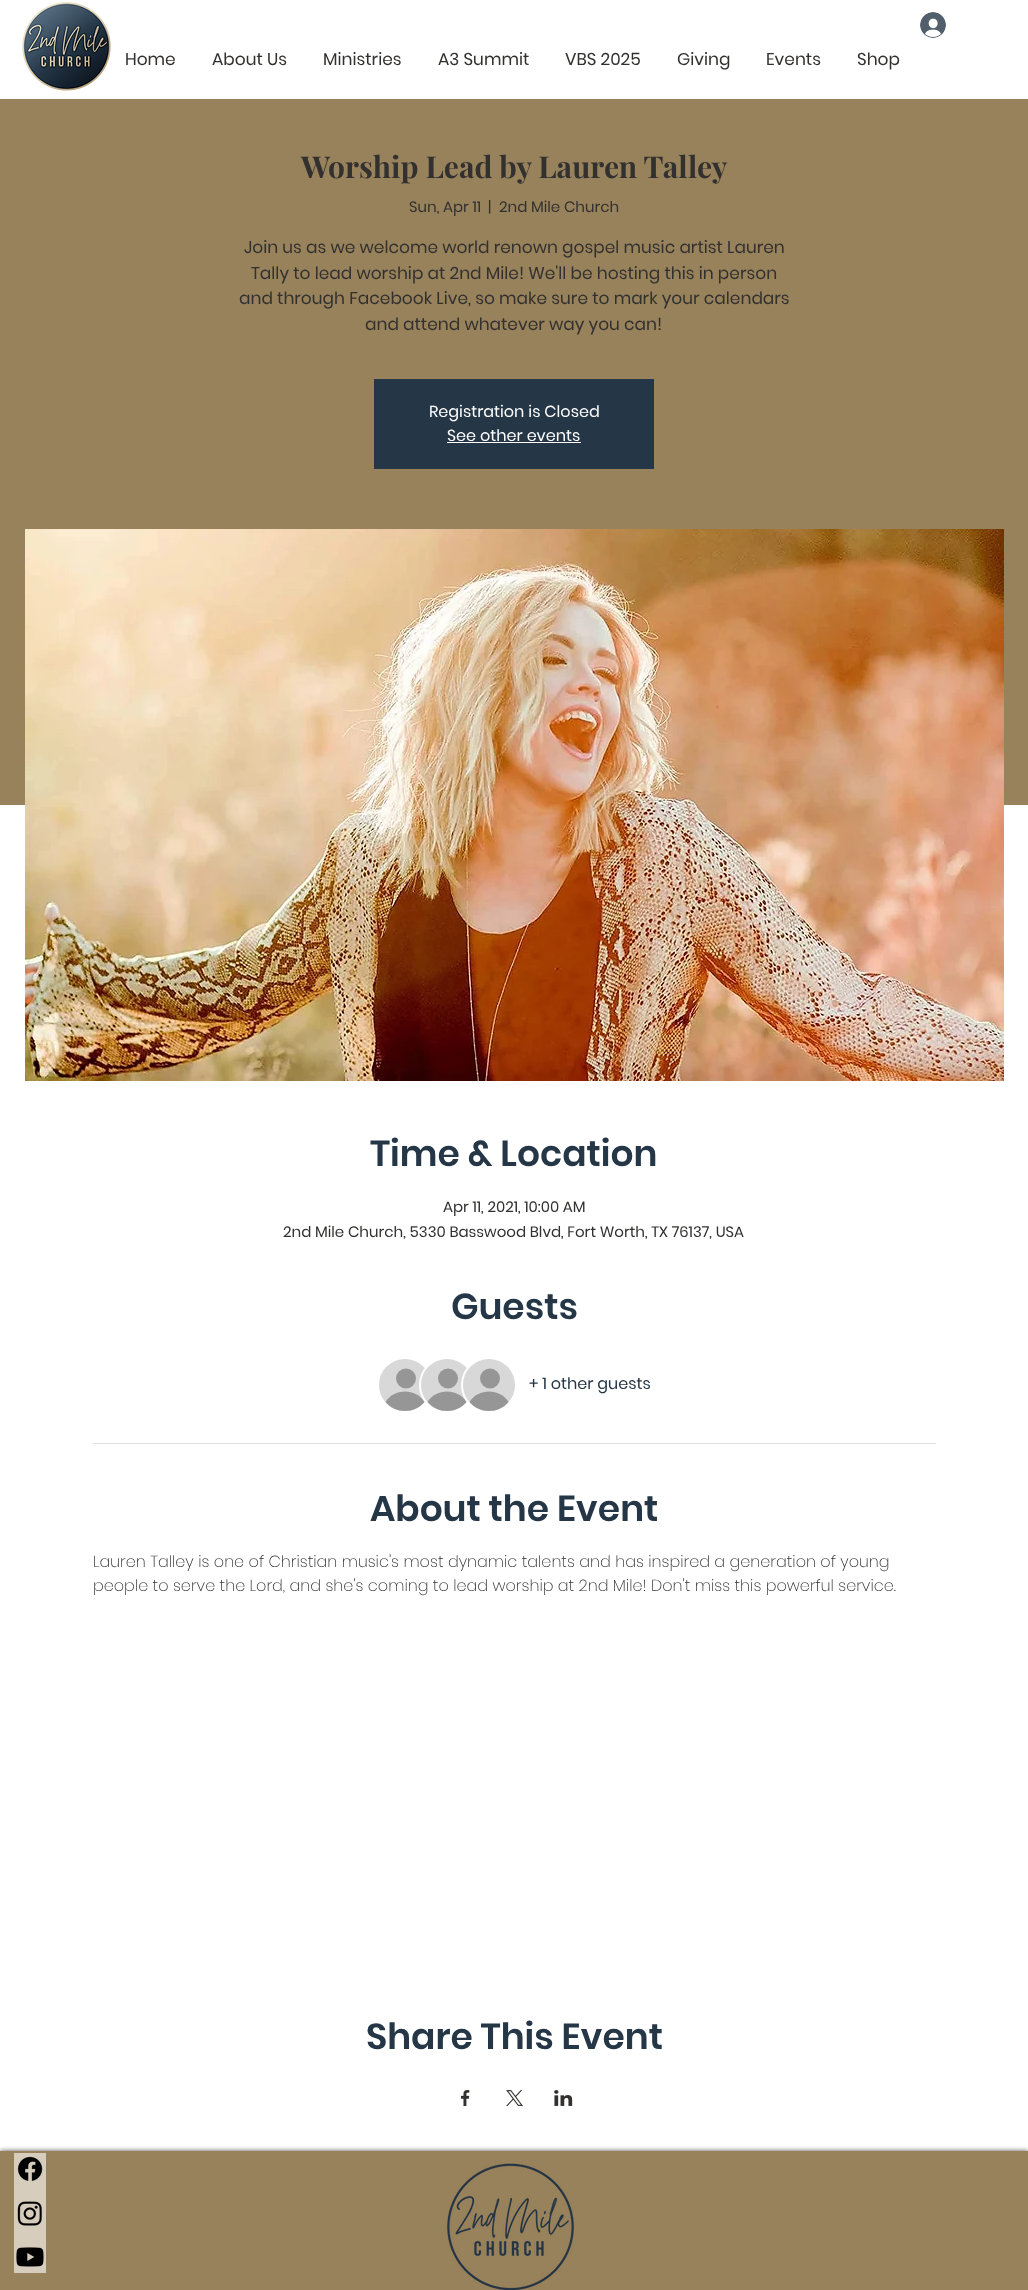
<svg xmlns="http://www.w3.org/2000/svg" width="1028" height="2290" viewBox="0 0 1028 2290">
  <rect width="100%" height="100%" fill="#fff"/>
  <image x="22" y="2" width="89" height="89" href="img/1.png"/>
  <image x="920" y="12" width="26" height="26" href="img/2.png"/>
  <path d="M0 99h1028v706H0z" fill="#98825b"/>
  <path d="M374 379h280v90H374z" fill="#253646"/>
  <path d="M447 442h134v1H447z" fill="#fff"/>
  <image x="25" y="529" width="979" height="552" href="img/3.png"/>
  <circle cx="405" cy="1385" r="27" fill="#d8d8d8" stroke="#fff" stroke-width="2"/>
  <circle cx="406" cy="1378.5" r="10" fill="#969696"/>
  <path d="M424.5 1402C414.5 1414 395.5 1414 385.5 1402C394 1388 416 1388 424.5 1402Z" fill="#969696"/>
  <circle cx="447" cy="1385" r="27" fill="#d8d8d8" stroke="#fff" stroke-width="2"/>
  <circle cx="448" cy="1378.5" r="10" fill="#969696"/>
  <path d="M466.5 1402C456.5 1414 437.5 1414 427.5 1402C436 1388 458 1388 466.5 1402Z" fill="#969696"/>
  <circle cx="489" cy="1385" r="27" fill="#d8d8d8" stroke="#fff" stroke-width="2"/>
  <circle cx="490" cy="1378.5" r="10" fill="#969696"/>
  <path d="M508.5 1402C498.5 1414 479.5 1414 469.5 1402C478 1388 500 1388 508.5 1402Z" fill="#969696"/>
  <path d="M93 1443h843v1H93z" fill="#e0e0e0"/>
  <image x="461" y="2090" width="9" height="16" href="img/4.png"/>
  <image x="506" y="2090" width="17" height="16" href="img/5.png"/>
  <image x="554" y="2090" width="19" height="16" href="img/6.png"/>
  <path d="M0 2151h1028v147H0z" fill="#000000b3" filter="blur(2.5px)"/>
  <path d="M0 2151h1028v139H0z" fill="#98825b"/>
  <image x="447" y="2163" width="127" height="127" href="img/7.png"/>
  <path d="M14 2153h32v120H14z" fill="#d6cdbd"/>
  <image x="17" y="2156" width="26" height="25" href="img/8.png"/>
  <image x="17" y="2201" width="25" height="25" href="img/9.png"/>
  <image x="16" y="2247" width="28" height="20" href="img/10.png"/>
  <g font-family="Poppins" font-size="17" fill="#333130">
    <text x="125" y="65">Home</text>
    <text x="212" y="65">About Us</text>
    <text x="323" y="65">Ministries</text>
    <text x="438" y="65">A3 Summit</text>
    <text x="565" y="65">VBS 2025</text>
    <text x="677" y="65">Giving</text>
    <text x="766" y="65">Events</text>
    <text x="857" y="65">Shop</text>
  </g>
  <text x="301" y="178" font-family="Playfair Display" font-size="30" font-weight="bold" fill="#333130">Worship Lead by Lauren Talley</text>
  <g font-family="Poppins" font-size="15" fill="#333130">
    <text x="409" y="212">Sun, Apr 11</text>
    <text x="488" y="212">|</text>
    <text x="499" y="212">2nd Mile Church</text>
  </g>
  <g font-family="Poppins" font-size="17" fill="#333130">
    <text x="244" y="253">Join us as we welcome world renown gospel music artist Lauren</text>
    <text x="251" y="279">Tally to lead worship at 2nd Mile! We'll be hosting this in person</text>
    <text x="239" y="304">and through Facebook Live, so make sure to mark your calendars</text>
    <text x="365" y="330">and attend whatever way you can!</text>
  </g>
  <g font-family="Poppins" font-size="16" fill="#fff">
    <text x="429" y="417">Registration is Closed</text>
    <text x="447" y="441">See other events</text>
  </g>
  <text x="370" y="1166" font-family="Poppins" font-size="36" font-weight="600" fill="#253646">Time &amp; Location</text>
  <g font-family="Poppins" font-size="15" fill="#333130">
    <text x="443" y="1212">Apr 11, 2021, 10:00 AM</text>
    <text x="283" y="1237">2nd Mile Church, 5330 Basswood Blvd, Fort Worth, TX 76137, USA</text>
  </g>
  <text x="451" y="1319" font-family="Poppins" font-size="36" font-weight="600" fill="#253646">Guests</text>
  <text x="529" y="1389" font-family="Poppins" font-size="16" fill="#253646">+ 1 other guests</text>
  <text x="370" y="1521" font-family="Poppins" font-size="36" font-weight="600" fill="#253646">About the Event</text>
  <g font-family="Poppins" font-size="16" font-weight="200" fill="#333130">
    <text x="93" y="1567">Lauren Talley is one of Christian music's most dynamic talents and has inspired a generation of young</text>
    <text x="93" y="1591">people to serve the Lord, and she's coming to lead worship at 2nd Mile! Don't miss this powerful service.</text>
  </g>
  <text x="366" y="2049" font-family="Poppins" font-size="36" font-weight="600" fill="#253646">Share This Event</text>
</svg>
